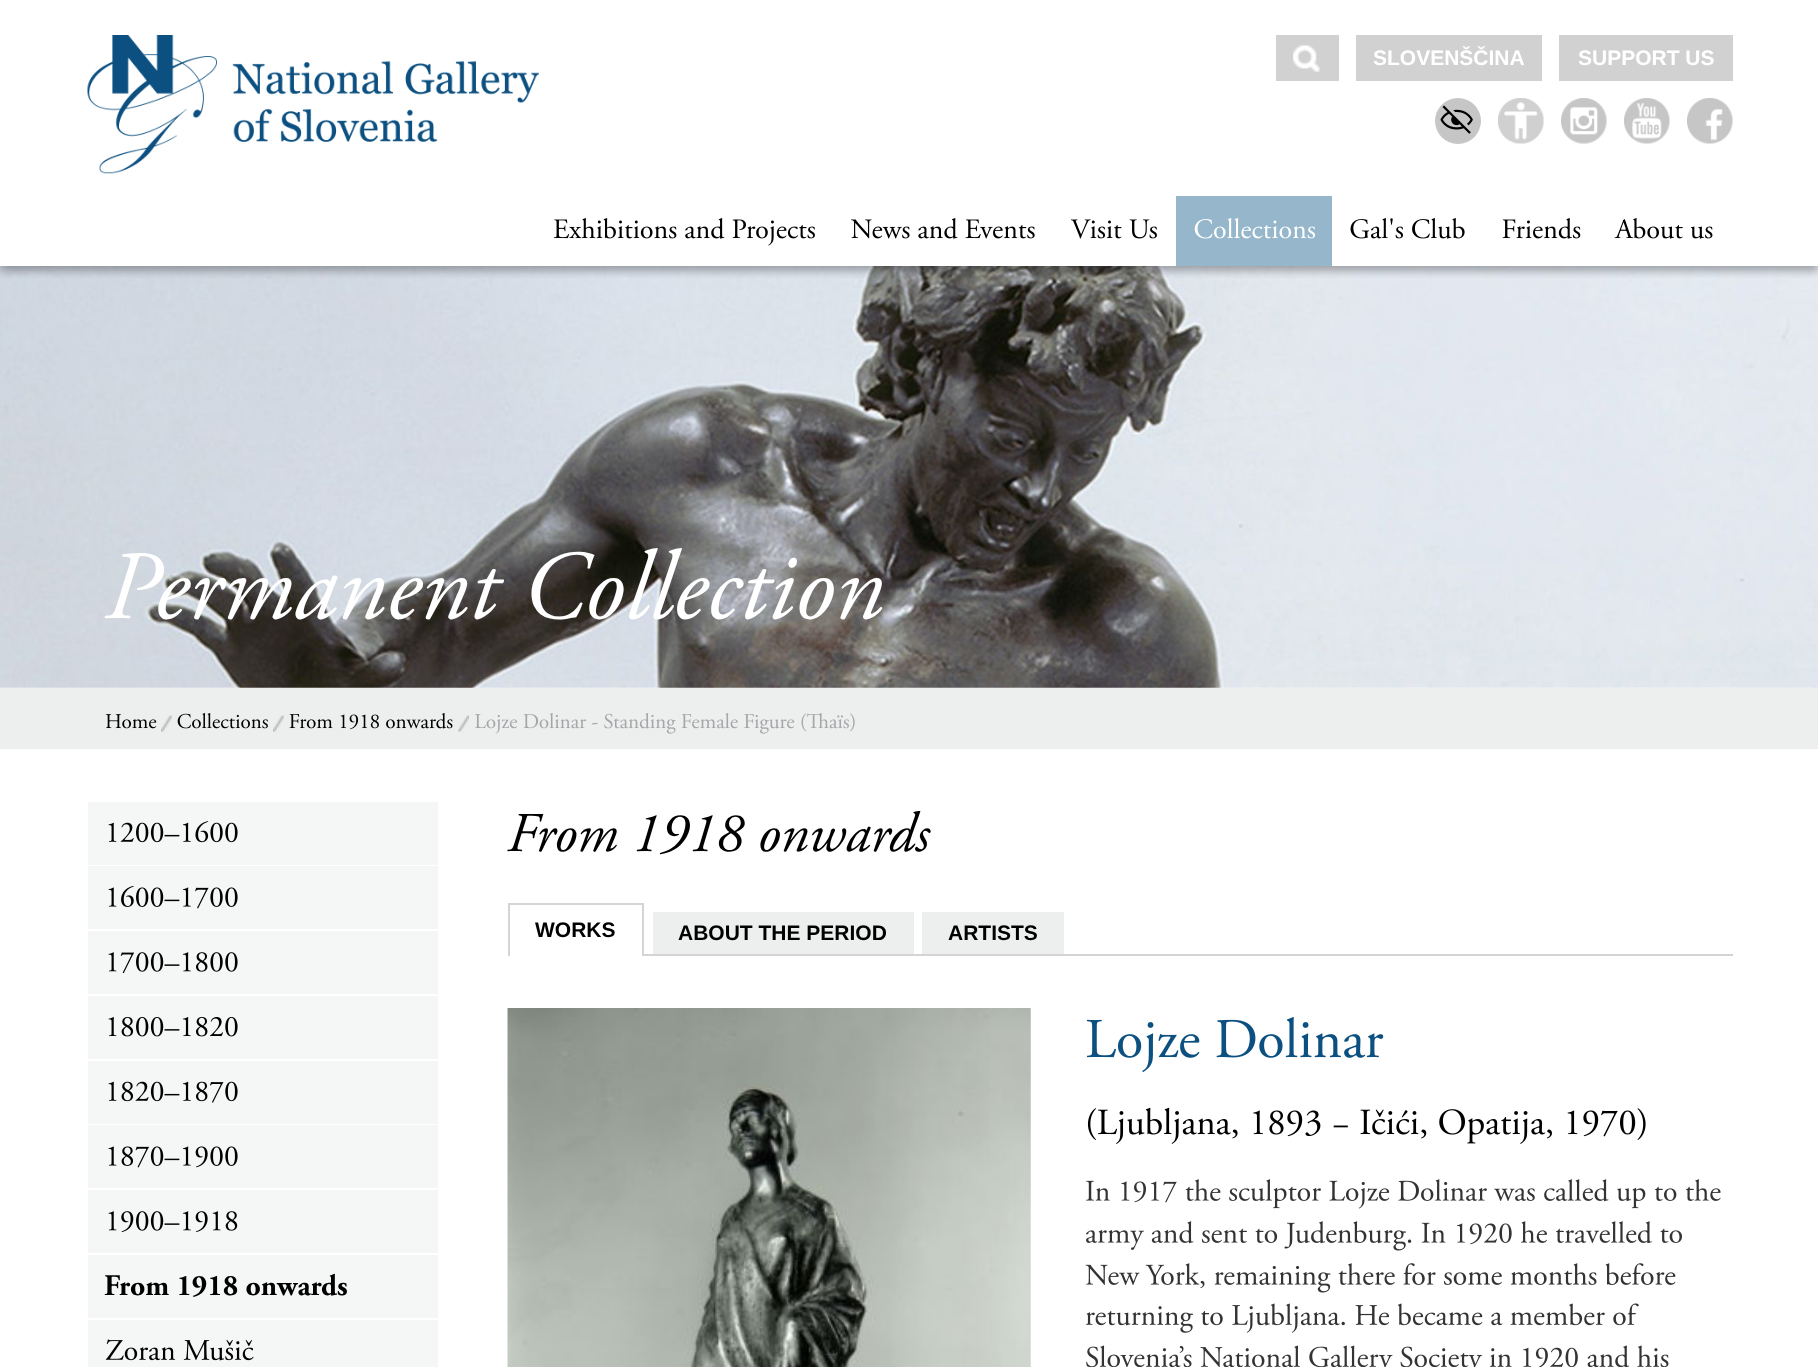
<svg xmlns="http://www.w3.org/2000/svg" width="1818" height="1367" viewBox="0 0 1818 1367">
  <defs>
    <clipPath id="clip1"><path d="M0 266h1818v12H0z"/></clipPath>
  </defs>
  <rect width="100%" height="100%" fill="#fff"/>
  <image x="0" y="266" width="1818" height="422" href="img/15.png"/>
  <g clip-path="url(#clip1)">
    <path d="M0 5h1818v266H0z" fill="#0000004d" filter="blur(4.5px)"/>
  </g>
  <image x="87" y="35" width="452" height="139" href="img/1.png"/>
  <path d="M1276 35h63v46H1276z" fill="#d1d1d1"/>
  <image x="1293" y="45" width="27" height="27" href="img/2.png"/>
  <path d="M1356 35h186v46H1356z" fill="#d1d1d1"/>
  <path d="M1559 35h174v46H1559z" fill="#d1d1d1"/>
  <circle cx="1458" cy="121" r="23" fill="#c6c6c6"/>
  <image x="1440" y="105" width="33" height="29" href="img/3.png"/>
  <image x="1498" y="98" width="46" height="46" href="img/4.png"/>
  <image x="1561" y="98" width="46" height="46" href="img/5.png"/>
  <image x="1624" y="98" width="46" height="46" href="img/6.png"/>
  <image x="1687" y="98" width="46" height="46" href="img/7.png"/>
  <image x="553" y="218" width="262" height="28" href="img/8.png"/>
  <image x="851" y="218" width="184" height="21" href="img/9.png"/>
  <image x="1070" y="219" width="87" height="20" href="img/10.png"/>
  <path d="M1176 196h156v70H1176z" fill="#96b7cb"/>
  <image x="1194" y="218" width="121" height="21" href="img/11.png"/>
  <image x="1350" y="218" width="115" height="21" href="img/12.png"/>
  <image x="1502" y="218" width="79" height="21" href="img/13.png"/>
  <image x="1614" y="218" width="99" height="21" href="img/14.png"/>
  <path d="M0 688h1818v61H0z" fill="#edeeee"/>
  <image x="161" y="715" width="11" height="17" href="img/16.png"/>
  <image x="105" y="714" width="52" height="15" href="img/17.png"/>
  <image x="273" y="715" width="11" height="17" href="img/16.png"/>
  <image x="177" y="713" width="91" height="16" href="img/18.png"/>
  <image x="458" y="715" width="11" height="17" href="img/19.png"/>
  <image x="289" y="713" width="164" height="17" href="img/20.png"/>
  <image x="475" y="713" width="380" height="21" href="img/21.png"/>
  <path d="M644 954h1089v2H644z" fill="#d4d4d4"/>
  <path d="M508 903h136v2H508z" fill="#d4d4d4"/>
  <path d="M642 903h2v53H642z" fill="#d4d4d4"/>
  <path d="M508 903h2v53H508z" fill="#d4d4d4"/>
  <path d="M653 912h261v42H653z" fill="#edeeee"/>
  <path d="M922 912h142v42H922z" fill="#edeeee"/>
  <image x="507" y="1008" width="524" height="359" href="img/22.png"/>
  <image x="1086" y="1017" width="298" height="55" href="img/23.png"/>
  <image x="1087" y="1107" width="559" height="37" href="img/24.png"/>
  <image x="1086" y="1179" width="635" height="30" href="img/25.png"/>
  <image x="1086" y="1221" width="596" height="30" href="img/26.png"/>
  <image x="1085" y="1263" width="591" height="30" href="img/27.png"/>
  <image x="1086" y="1303" width="553" height="30" href="img/28.png"/>
  <image x="1086" y="1345" width="583" height="22" href="img/29.png"/>
  <path d="M88 802h350v63H88z" fill="#f5f7f6"/>
  <image x="108" y="821" width="130" height="22" href="img/30.png"/>
  <path d="M88 866h350v63H88z" fill="#f5f7f6"/>
  <image x="108" y="886" width="130" height="23" href="img/31.png"/>
  <path d="M88 931h350v63H88z" fill="#f5f7f6"/>
  <image x="108" y="952" width="130" height="22" href="img/32.png"/>
  <path d="M88 996h350v63H88z" fill="#f5f7f6"/>
  <image x="108" y="1017" width="130" height="20" href="img/33.png"/>
  <path d="M88 1061h350v63H88z" fill="#f5f7f6"/>
  <image x="108" y="1081" width="130" height="22" href="img/34.png"/>
  <path d="M88 1125h350v63H88z" fill="#f5f7f6"/>
  <image x="108" y="1146" width="130" height="22" href="img/35.png"/>
  <path d="M88 1190h350v63H88z" fill="#f5f7f6"/>
  <image x="108" y="1211" width="130" height="21" href="img/36.png"/>
  <path d="M88 1255h350v63H88z" fill="#f5f7f6"/>
  <path d="M88 1320h350v47H88z" fill="#f5f7f6"/>
  <image x="105" y="1339" width="149" height="22" href="img/37.png"/>
  <g font-family="Liberation Sans" font-size="21" font-weight="bold" fill="#fff">
    <text x="1373" y="65">SLOVENŠČINA</text>
    <text x="1578" y="65">SUPPORT US</text>
  </g>
  <text x="104" y="618" font-family="Adobe Garamond" font-size="98" font-style="italic" fill="#fff">Permanent Collection</text>
  <text x="507" y="851" font-family="Adobe Garamond" font-size="56" font-style="italic" fill="#000">From 1918 onwards</text>
  <g font-family="Liberation Sans" font-size="21" font-weight="bold" fill="#000">
    <text x="535" y="937">WORKS</text>
    <text x="678" y="940">ABOUT THE PERIOD</text>
    <text x="948" y="940">ARTISTS</text>
  </g>
  <text x="104" y="1295" font-family="Adobe Garamond" font-size="29.75" font-weight="bold" fill="#000">From 1918 onwards</text>
</svg>
